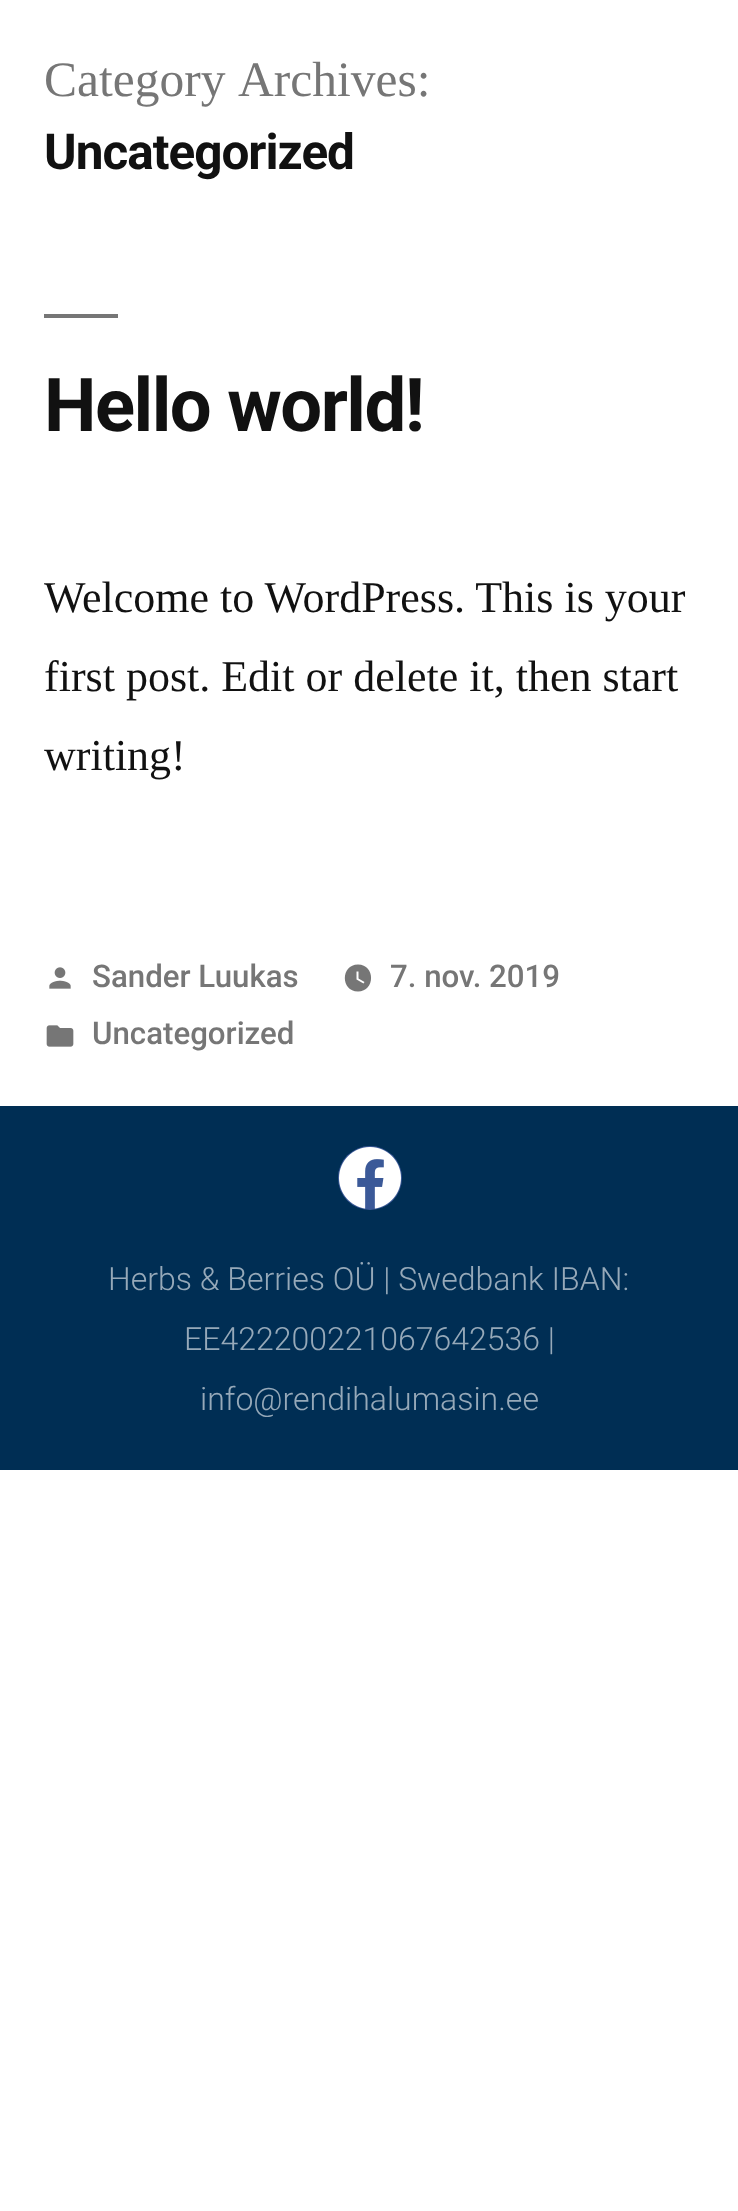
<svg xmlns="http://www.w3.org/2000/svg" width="738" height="2211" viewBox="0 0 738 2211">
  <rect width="100%" height="100%" fill="#fff"/>
  <path d="M44 314h74v4H44z" fill="#767676"/>
  <image x="49" y="967" width="22" height="22" href="img/1.png"/>
  <path d="M358 964.5C340.5 964.5 340.5 991.5 358 991.5C375.5 991.5 375.5 964.5 358 964.5ZM363.5 983.5L356.5 979.5V971.5H358.5V978.5L364.5 982Z" fill="#767676"/>
  <image x="46" y="1025" width="28" height="22" href="img/2.png"/>
  <path d="M0 1106h738v364H0z" fill="#002e54"/>
  <circle cx="370" cy="1178" r="32" fill="#3b5998"/>
  <image x="339" y="1147" width="62" height="62" href="img/3.png"/>
  <text x="44" y="96" word-spacing="3" font-family="Liberation Serif" font-size="49.5" fill="#767676">Category Archives:</text>
  <text x="44" y="169" font-family="Roboto" font-size="49.5" font-weight="bold" letter-spacing="-1" fill="#111">Uncategorized</text>
  <text x="44" y="431" font-family="Roboto" font-size="74.25" font-weight="bold" letter-spacing="-1.5" fill="#111">Hello world!</text>
  <g font-family="Liberation Serif" font-size="44" fill="#111">
    <text x="44" y="612">Welcome to WordPress. This is your</text>
    <text x="44" y="691">first post. Edit or delete it, then start</text>
    <text x="44" y="770">writing!</text>
  </g>
  <g font-family="Roboto" font-size="31.25" font-weight="500" fill="#767676">
    <text x="92" y="987">Sander Luukas</text>
    <text x="390" y="987">7. nov. 2019</text>
    <text x="92" y="1044">Uncategorized</text>
  </g>
  <g font-family="Roboto" font-size="32" font-weight="300" fill="#96a9b9">
    <text x="108" y="1290">Herbs &amp; Berries OÜ | Swedbank IBAN:</text>
    <text x="184" y="1350">EE422200221067642536 |</text>
    <text x="200" y="1410">info@rendihalumasin.ee</text>
  </g>
</svg>
